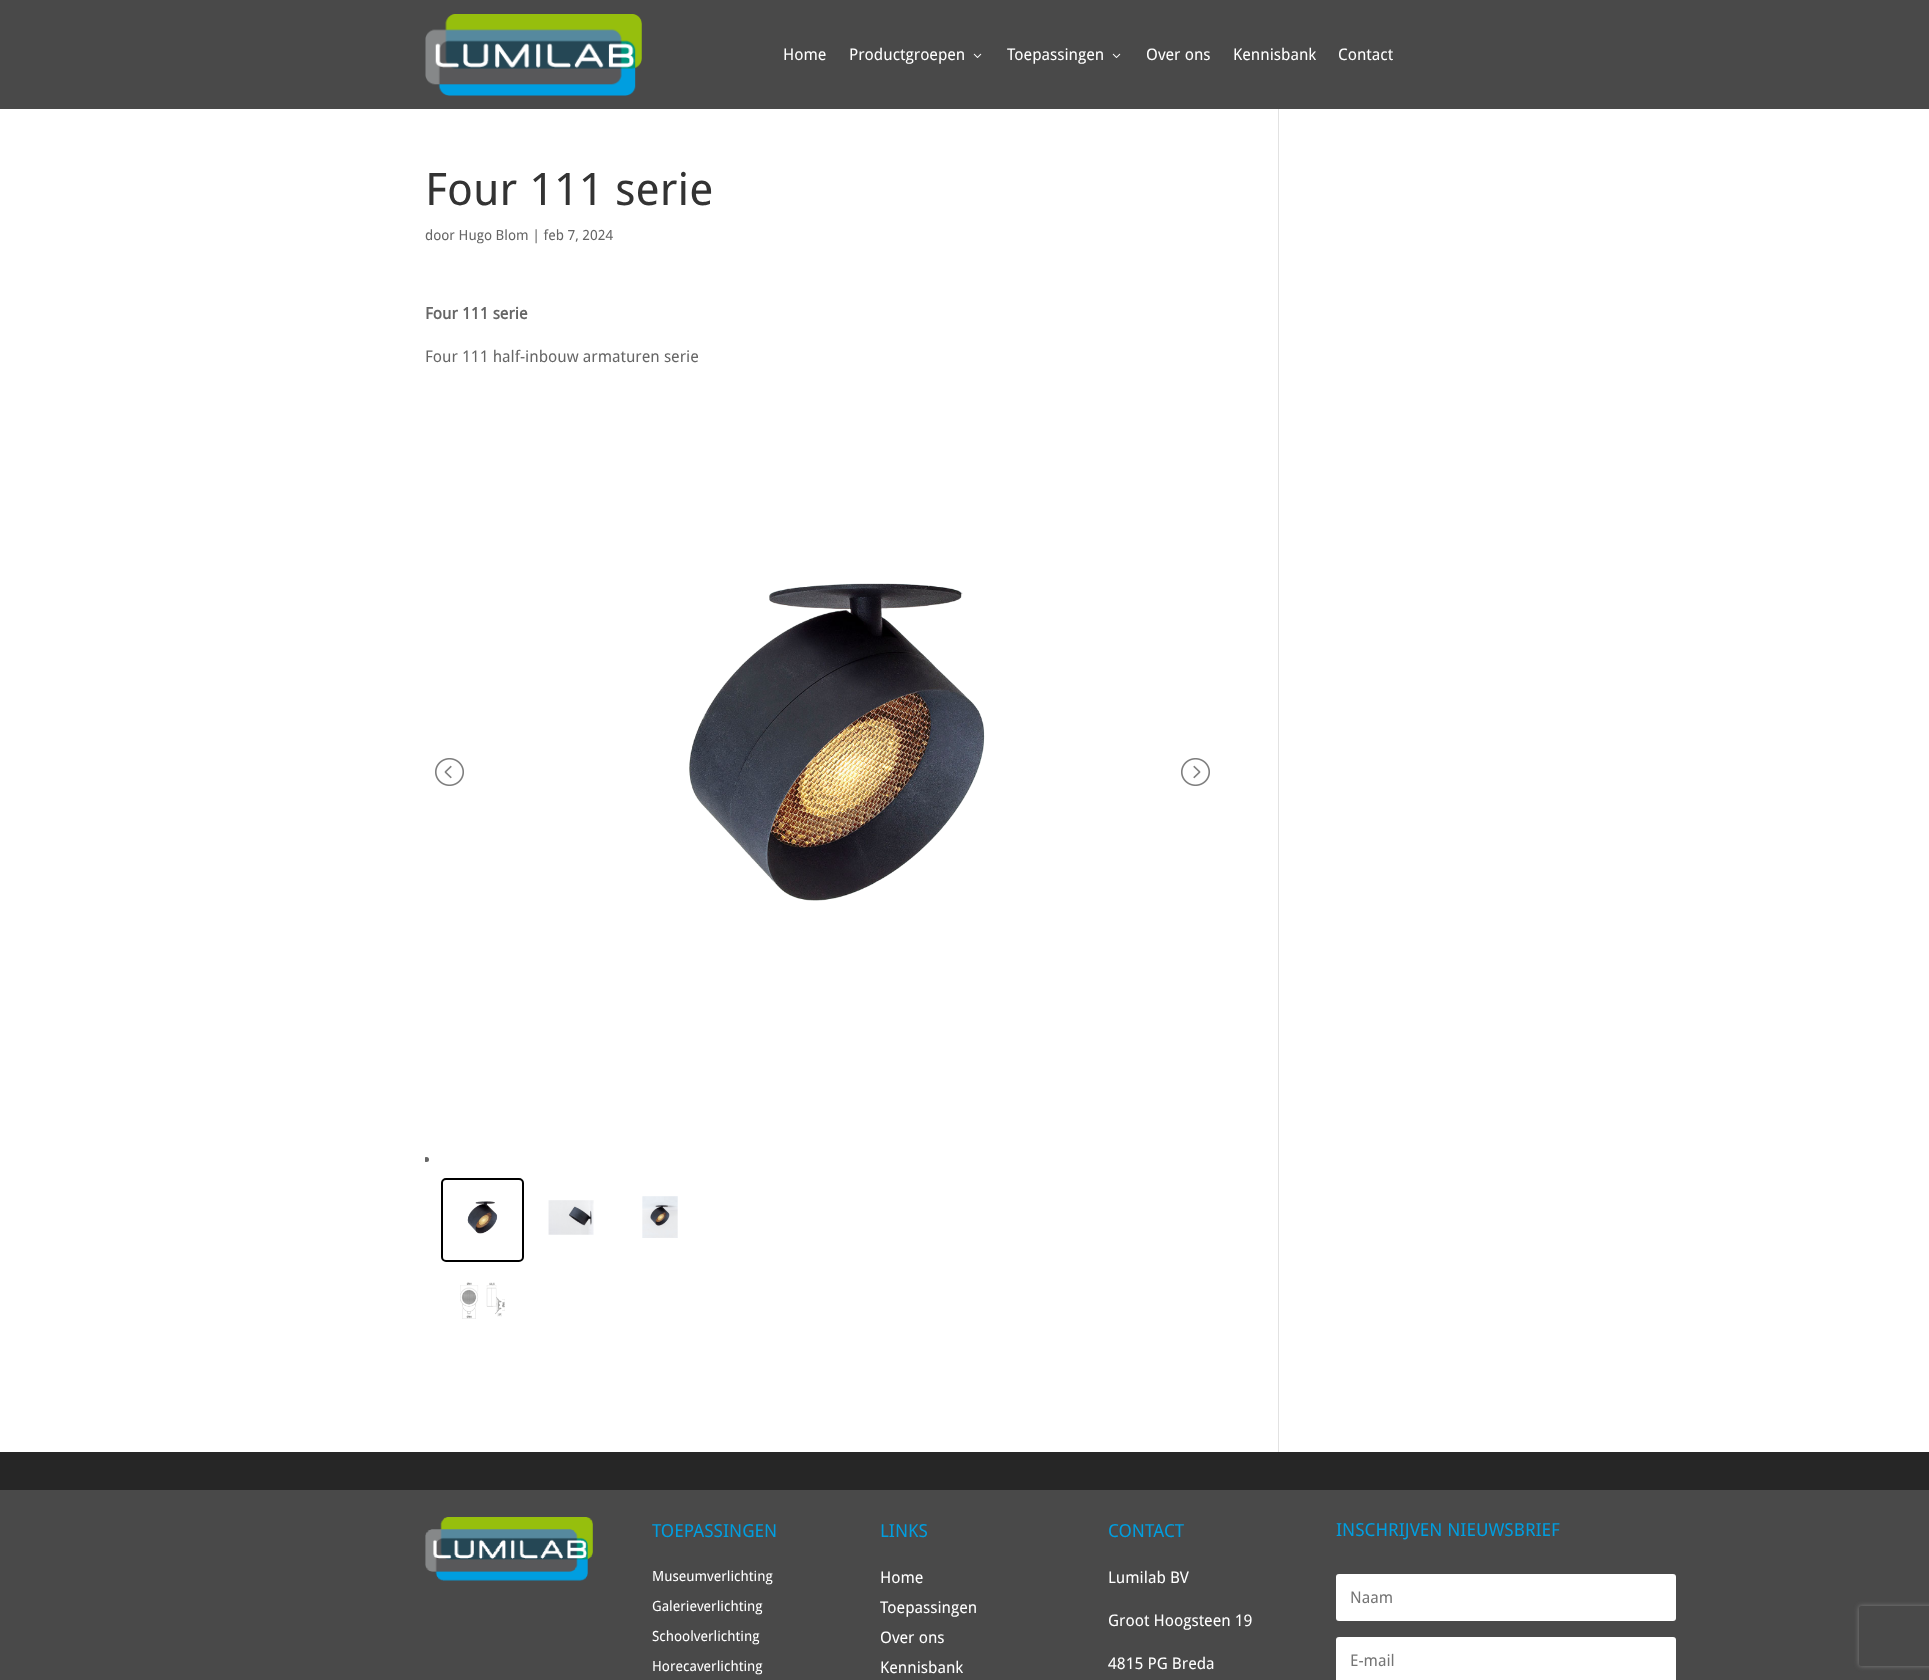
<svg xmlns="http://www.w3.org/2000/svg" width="1929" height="1680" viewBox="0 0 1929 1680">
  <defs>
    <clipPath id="clip1"><path d="M425 371h795v802H425z"/></clipPath>
    <clipPath id="clip2"><path d="M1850 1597H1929V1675H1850ZM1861 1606H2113C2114 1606 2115 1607 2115 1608V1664C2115 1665 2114 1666 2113 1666H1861C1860 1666 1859 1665 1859 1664V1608C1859 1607 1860 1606 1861 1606Z" clip-rule="evenodd"/></clipPath>
  </defs>
  <rect width="100%" height="100%" fill="#262626"/>
  <path d="M0 0h1929v109H0z" fill="#494949"/>
  <image x="425" y="14" width="217" height="82" href="img/1.png"/>
  <image x="973" y="53" width="9" height="5" href="img/2.png"/>
  <image x="1112" y="53" width="9" height="5" href="img/2.png"/>
  <path d="M0 109h1929v1343H0z" fill="#fff"/>
  <image x="689" y="583" width="296" height="318" href="img/3.png"/>
  <g clip-path="url(#clip1)">
    <circle cx="426.5" cy="1159.5" r="2.5" fill="#666"/>
  </g>
  <image x="435" y="758" width="29" height="28" href="img/4.png"/>
  <image x="1181" y="758" width="29" height="28" href="img/5.png"/>
  <rect x="442" y="1179" width="81" height="82" rx="4" fill="none" stroke="#000" stroke-width="2"/>
  <image x="467" y="1201" width="31" height="33" href="img/6.png"/>
  <image x="548" y="1200" width="46" height="35" href="img/7.png"/>
  <image x="642" y="1196" width="36" height="42" href="img/8.png"/>
  <image x="460" y="1282" width="45" height="37" href="img/9.png"/>
  <path d="M1278 109h1v1343H1278z" fill="#e2e2e2"/>
  <path d="M0 1490h1929v190H0z" fill="#494949"/>
  <image x="425" y="1517" width="168" height="64" href="img/10.png"/>
  <rect x="1336" y="1574" width="340" height="47" rx="3" fill="#fff"/>
  <rect x="1336" y="1637" width="340" height="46" rx="3" fill="#fff"/>
  <g clip-path="url(#clip2)">
    <rect x="1859" y="1606" width="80" height="60" rx="2" fill="#808080" filter="blur(2.5px)"/>
  </g>
  <g font-family="Droid Sans" font-size="16" fill="#fff">
    <text x="783" y="60">Home</text>
    <text x="849" y="60">Productgroepen</text>
    <text x="1007" y="60">Toepassingen</text>
    <text x="1146" y="60">Over ons</text>
    <text x="1233" y="60">Kennisbank</text>
    <text x="1338" y="60">Contact</text>
  </g>
  <text x="425" y="205" font-family="Droid Sans" font-size="45" fill="#333">Four 111 serie</text>
  <text x="425" y="240" font-family="Droid Sans" font-size="14" fill="#666">door Hugo Blom | feb 7, 2024</text>
  <text x="425" y="319" font-family="Droid Sans" font-size="16" font-weight="bold" fill="#666">Four 111 serie</text>
  <text x="425" y="362" font-family="Droid Sans" font-size="16" fill="#666">Four 111 half-inbouw armaturen serie</text>
  <text x="652" y="1537" font-family="Droid Sans" font-size="18" fill="#009ee0">TOEPASSINGEN</text>
  <g font-family="Droid Sans" font-size="14" fill="#fff">
    <text x="652" y="1581">Museumverlichting</text>
    <text x="652" y="1611">Galerieverlichting</text>
    <text x="652" y="1641">Schoolverlichting</text>
    <text x="652" y="1671">Horecaverlichting</text>
  </g>
  <text x="880" y="1537" font-family="Droid Sans" font-size="18" fill="#009ee0">LINKS</text>
  <g font-family="Droid Sans" font-size="16" fill="#fff">
    <text x="880" y="1583">Home</text>
    <text x="880" y="1613">Toepassingen</text>
    <text x="880" y="1643">Over ons</text>
    <text x="880" y="1673">Kennisbank</text>
  </g>
  <text x="1108" y="1537" font-family="Droid Sans" font-size="18" fill="#009ee0">CONTACT</text>
  <g font-family="Droid Sans" font-size="16" fill="#fff">
    <text x="1108" y="1583">Lumilab BV</text>
    <text x="1108" y="1626">Groot Hoogsteen 19</text>
    <text x="1108" y="1669">4815 PG Breda</text>
  </g>
  <text x="1336" y="1536" font-family="Droid Sans" font-size="18" fill="#009ee0">INSCHRIJVEN NIEUWSBRIEF</text>
  <g font-family="Droid Sans" font-size="16" fill="#757575">
    <text x="1350" y="1603">Naam</text>
    <text x="1350" y="1666">E-mail</text>
  </g>
</svg>
